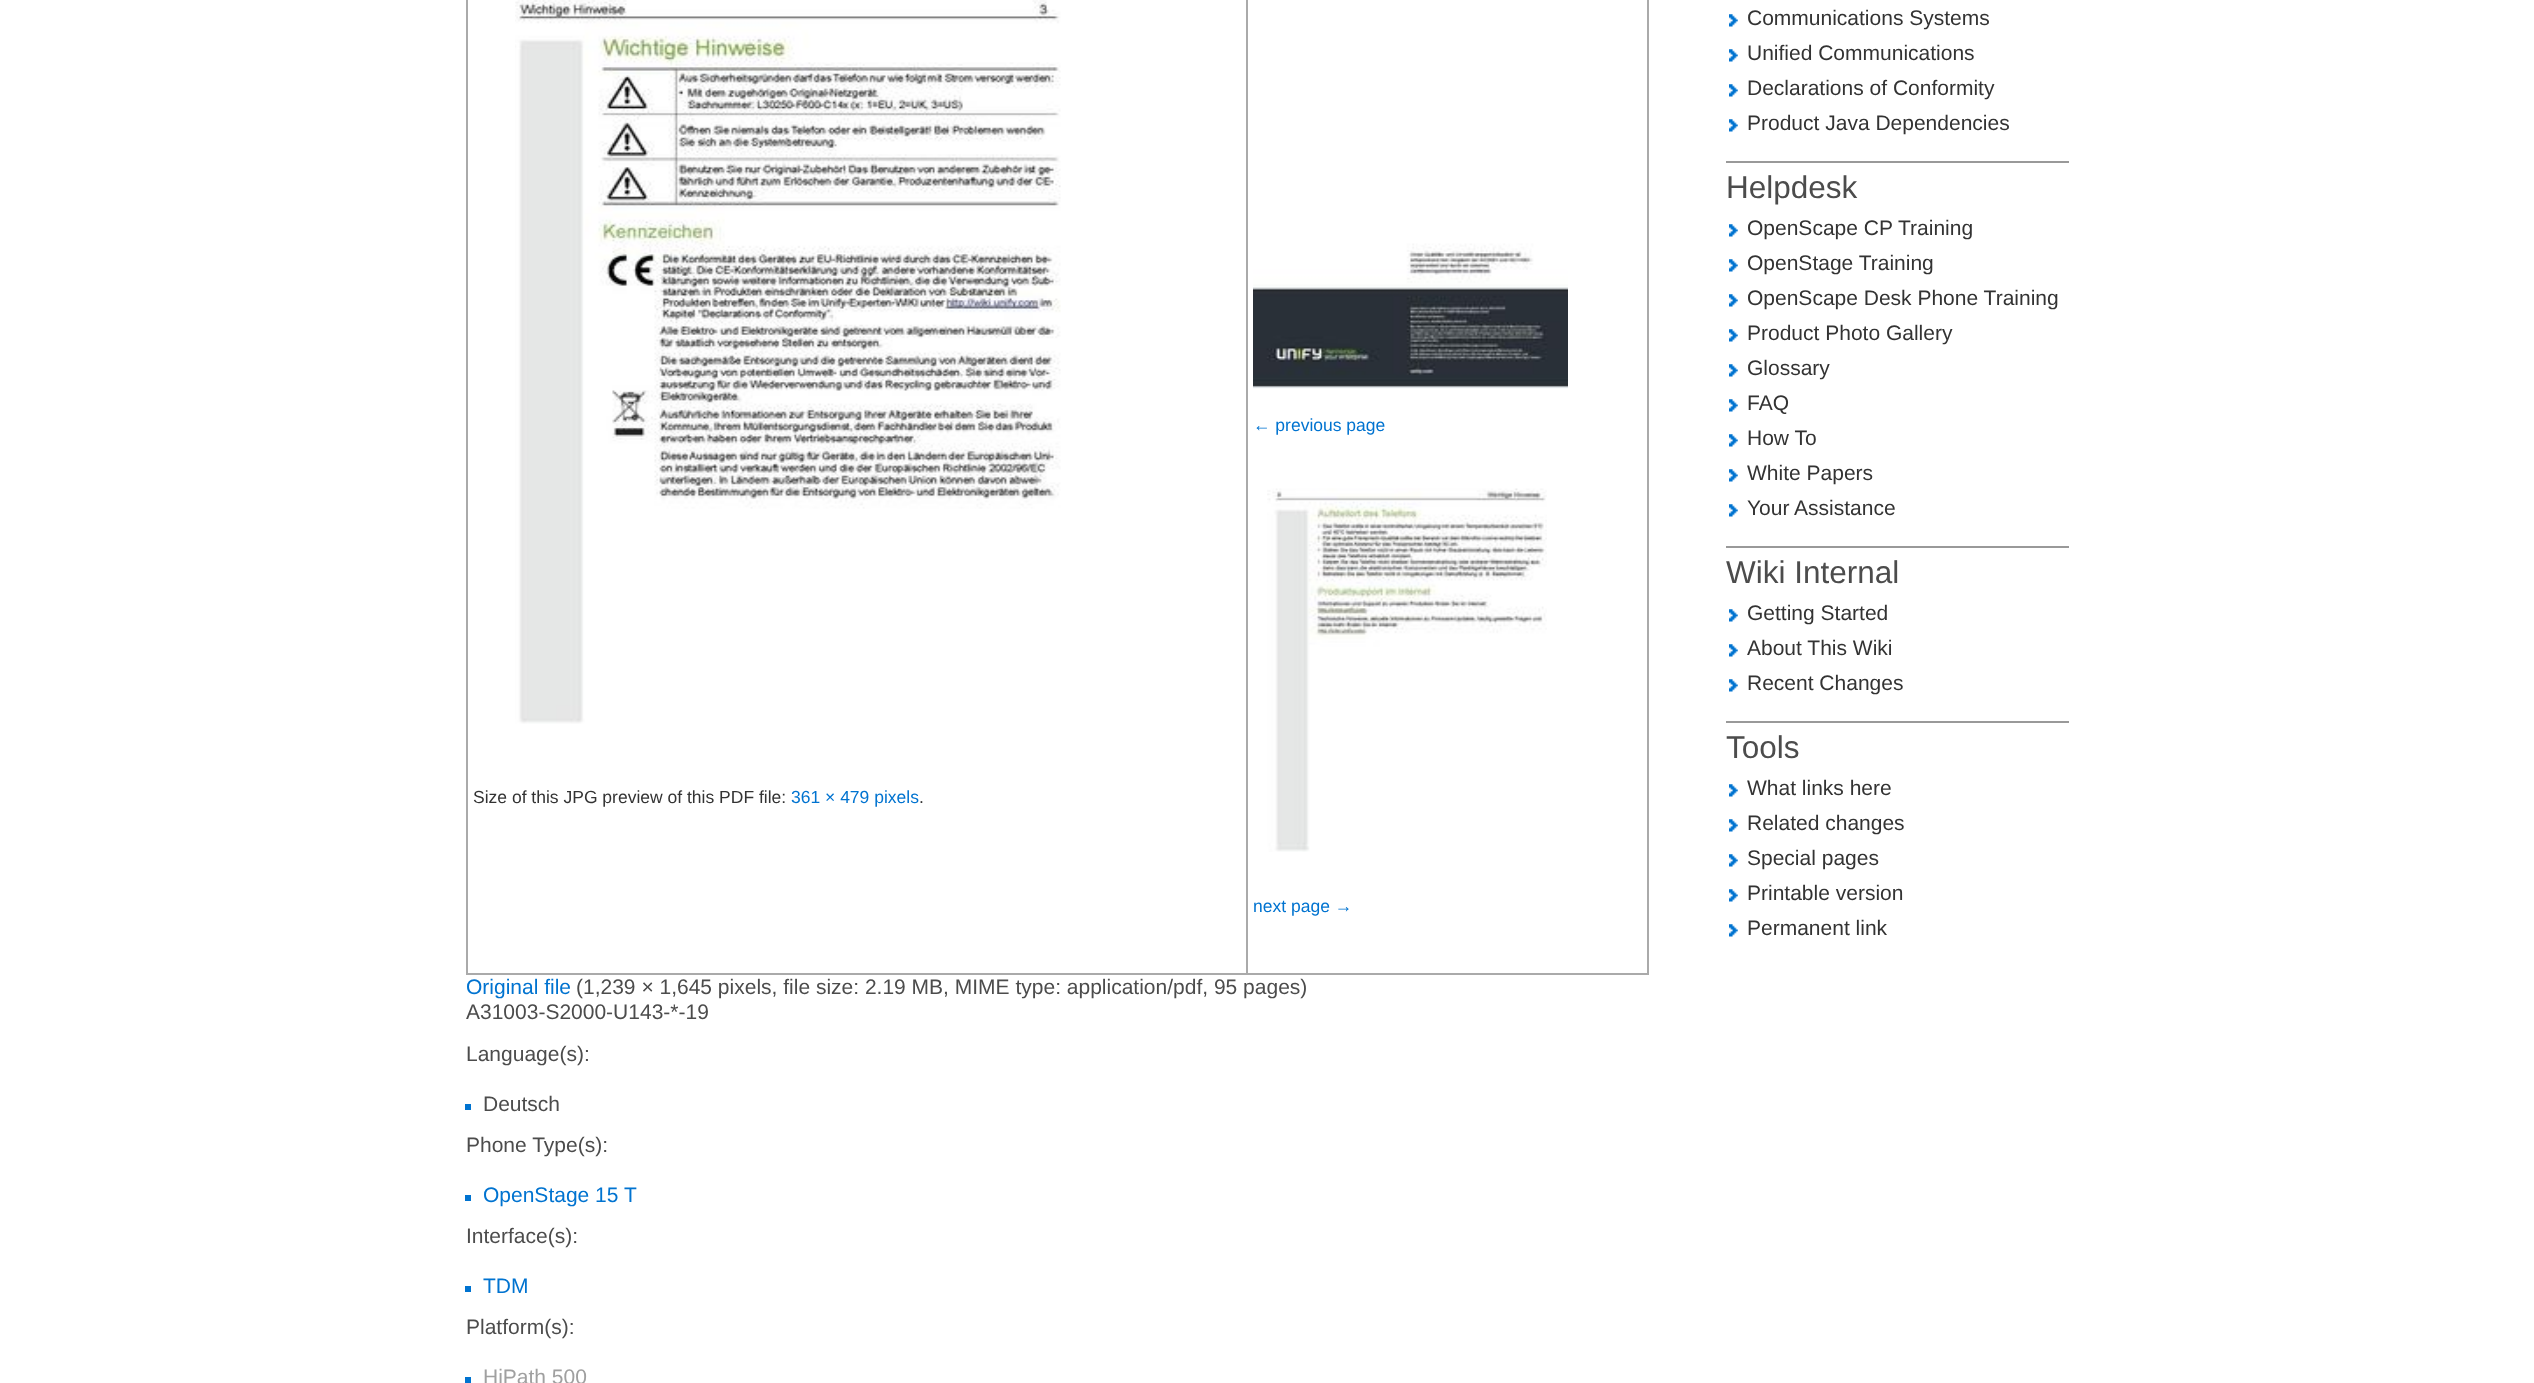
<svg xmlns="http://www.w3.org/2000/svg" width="2534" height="1383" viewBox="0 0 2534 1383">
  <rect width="100%" height="100%" fill="#fff"/>
  <path d="M1647 0h2v975H1647z" fill="#aaa"/>
  <path d="M466 973h1183v2H466z" fill="#aaa"/>
  <path d="M466 0h2v975H466z" fill="#aaa"/>
  <image x="515" y="0" width="546" height="724" href="img/1.png"/>
  <path d="M1246 0h2v975H1246z" fill="#aaa"/>
  <image x="1253" y="243" width="315" height="146" href="img/2.png"/>
  <image x="1267" y="488" width="280" height="364" href="img/3.png"/>
  <path d="M465 1104h6v6H465z" fill="#0073d0"/>
  <path d="M465 1195h6v6H465z" fill="#0073d0"/>
  <path d="M465 1286h6v6H465z" fill="#0073d0"/>
  <path d="M465 1377h6v6H465z" fill="#0073d0"/>
  <image x="1729" y="14" width="9" height="13" href="img/4.png"/>
  <image x="1729" y="49" width="9" height="13" href="img/4.png"/>
  <image x="1729" y="84" width="9" height="13" href="img/4.png"/>
  <image x="1729" y="119" width="9" height="13" href="img/4.png"/>
  <path d="M1726 161h343v2H1726z" fill="#999"/>
  <image x="1729" y="224" width="9" height="13" href="img/4.png"/>
  <image x="1729" y="259" width="9" height="13" href="img/4.png"/>
  <image x="1729" y="294" width="9" height="13" href="img/4.png"/>
  <image x="1729" y="329" width="9" height="13" href="img/4.png"/>
  <image x="1729" y="364" width="9" height="13" href="img/4.png"/>
  <image x="1729" y="399" width="9" height="13" href="img/4.png"/>
  <image x="1729" y="434" width="9" height="13" href="img/4.png"/>
  <image x="1729" y="469" width="9" height="13" href="img/4.png"/>
  <image x="1729" y="504" width="9" height="13" href="img/4.png"/>
  <path d="M1726 546h343v2H1726z" fill="#999"/>
  <image x="1729" y="609" width="9" height="13" href="img/4.png"/>
  <image x="1729" y="644" width="9" height="13" href="img/4.png"/>
  <image x="1729" y="679" width="9" height="13" href="img/4.png"/>
  <path d="M1726 721h343v2H1726z" fill="#999"/>
  <image x="1729" y="784" width="9" height="13" href="img/4.png"/>
  <image x="1729" y="819" width="9" height="13" href="img/4.png"/>
  <image x="1729" y="854" width="9" height="13" href="img/4.png"/>
  <image x="1729" y="889" width="9" height="13" href="img/4.png"/>
  <image x="1729" y="924" width="9" height="13" href="img/4.png"/>
  <text x="473" y="803" font-family="Liberation Sans" font-size="17.5" fill="#333">Size of this JPG preview of this PDF file:</text>
  <text x="791" y="803" font-family="Liberation Sans" font-size="17.5" fill="#0073d0">361 × 479 pixels</text>
  <text x="919" y="803" font-family="Liberation Sans" font-size="17.5" fill="#333">.</text>
  <g font-family="Liberation Sans" font-size="17.5" fill="#0073d0">
    <text x="1253" y="431">← previous page</text>
    <text x="1253" y="912">next page →</text>
  </g>
  <text x="466" y="994" font-family="Liberation Sans" font-size="21" fill="#0073d0">Original file</text>
  <g font-family="Liberation Sans" font-size="21" fill="#4c4c4c">
    <text x="576" y="994">(1,239 × 1,645 pixels, file size: 2.19 MB, MIME type: application/pdf, 95 pages)</text>
    <text x="466" y="1019">A31003-S2000-U143-*-19</text>
    <text x="466" y="1061">Language(s):</text>
    <text x="483" y="1111">Deutsch</text>
    <text x="466" y="1152">Phone Type(s):</text>
  </g>
  <text x="483" y="1202" font-family="Liberation Sans" font-size="21" fill="#0073d0">OpenStage 15 T</text>
  <text x="466" y="1243" font-family="Liberation Sans" font-size="21" fill="#4c4c4c">Interface(s):</text>
  <text x="483" y="1293" font-family="Liberation Sans" font-size="21" fill="#0073d0">TDM</text>
  <text x="466" y="1334" font-family="Liberation Sans" font-size="21" fill="#4c4c4c">Platform(s):</text>
  <text x="483" y="1384" font-family="Liberation Sans" font-size="21" fill="#a0a0a0">HiPath 500</text>
  <g font-family="Liberation Sans" font-size="21" fill="#333">
    <text x="1747" y="25">Communications Systems</text>
    <text x="1747" y="60">Unified Communications</text>
    <text x="1747" y="95">Declarations of Conformity</text>
    <text x="1747" y="130">Product Java Dependencies</text>
  </g>
  <text x="1726" y="198" font-family="Liberation Sans" font-size="31.5" fill="#4c4c4c">Helpdesk</text>
  <g font-family="Liberation Sans" font-size="21" fill="#333">
    <text x="1747" y="235">OpenScape CP Training</text>
    <text x="1747" y="270">OpenStage Training</text>
    <text x="1747" y="305">OpenScape Desk Phone Training</text>
    <text x="1747" y="340">Product Photo Gallery</text>
    <text x="1747" y="375">Glossary</text>
    <text x="1747" y="410">FAQ</text>
    <text x="1747" y="445">How To</text>
    <text x="1747" y="480">White Papers</text>
    <text x="1747" y="515">Your Assistance</text>
  </g>
  <text x="1726" y="583" font-family="Liberation Sans" font-size="31.5" fill="#4c4c4c">Wiki Internal</text>
  <g font-family="Liberation Sans" font-size="21" fill="#333">
    <text x="1747" y="620">Getting Started</text>
    <text x="1747" y="655">About This Wiki</text>
    <text x="1747" y="690">Recent Changes</text>
  </g>
  <text x="1726" y="758" font-family="Liberation Sans" font-size="31.5" fill="#4c4c4c">Tools</text>
  <g font-family="Liberation Sans" font-size="21" fill="#333">
    <text x="1747" y="795">What links here</text>
    <text x="1747" y="830">Related changes</text>
    <text x="1747" y="865">Special pages</text>
    <text x="1747" y="900">Printable version</text>
    <text x="1747" y="935">Permanent link</text>
  </g>
</svg>
